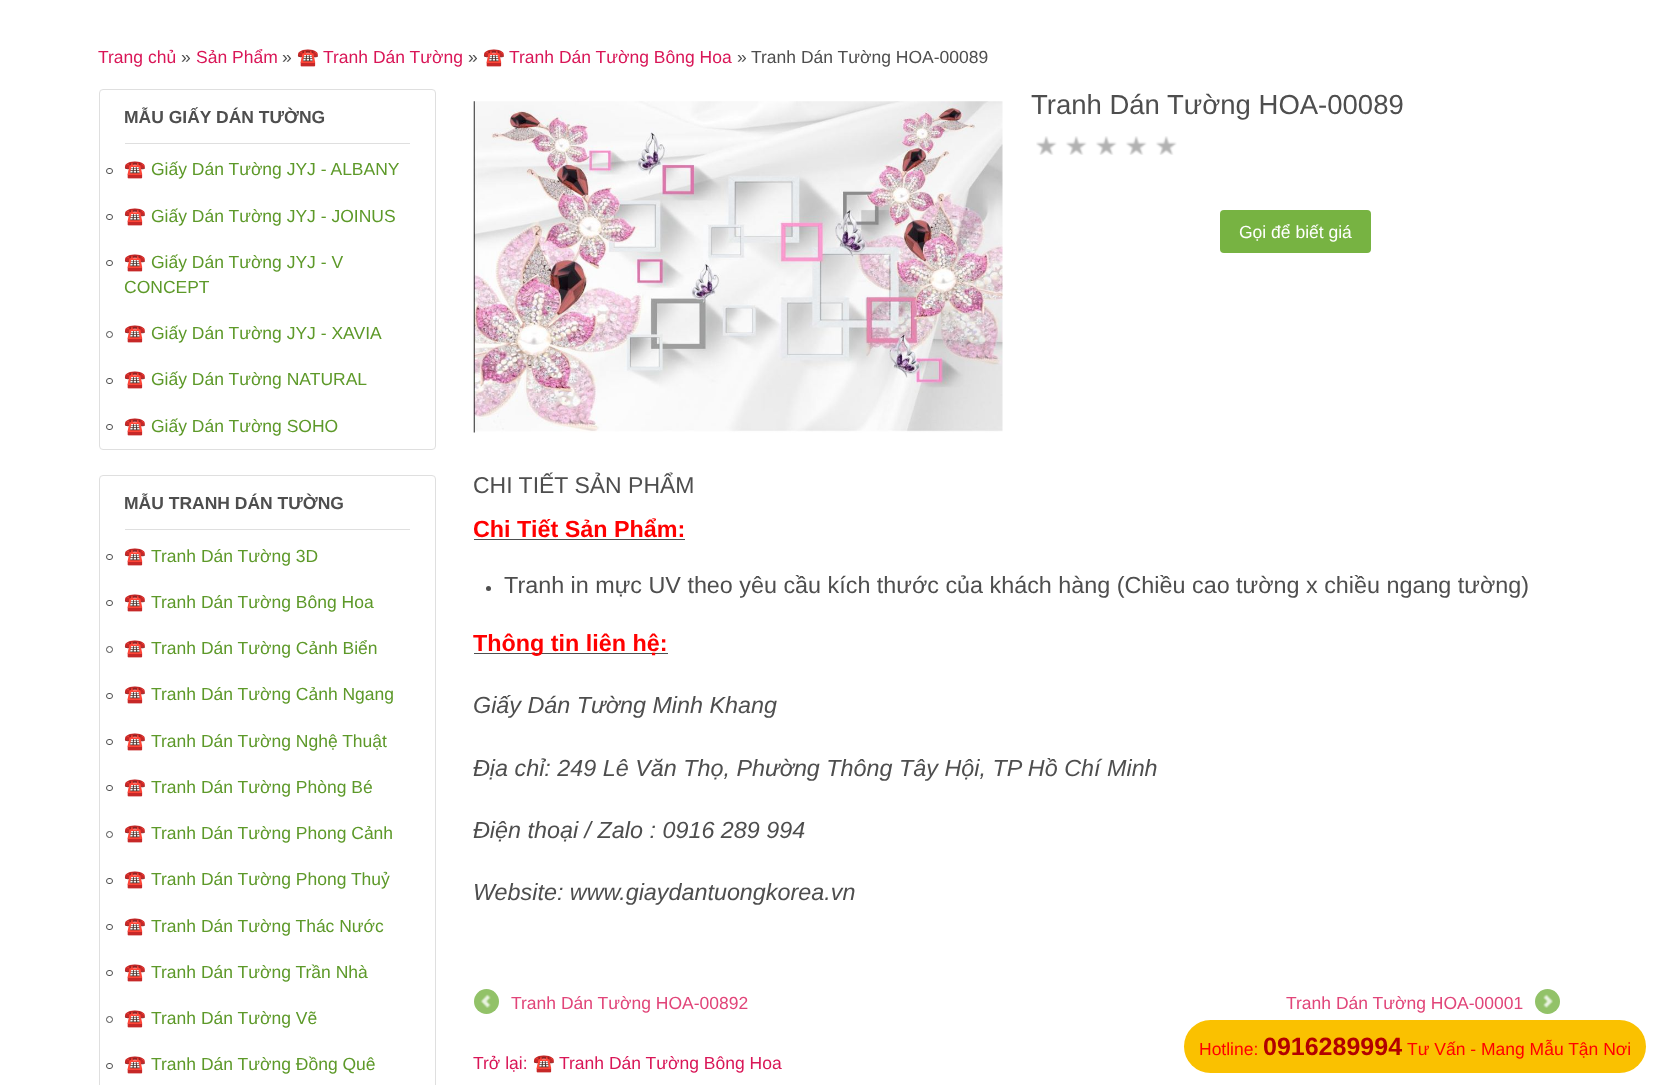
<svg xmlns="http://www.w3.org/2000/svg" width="1658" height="1085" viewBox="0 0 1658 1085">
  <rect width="100%" height="100%" fill="#fff"/>
  <rect x="99.5" y="89.5" width="336" height="360" rx="3.5" fill="none" stroke="#dfdfdf"/>
  <path d="M125 143h285v1H125z" fill="#dfdfdf"/>
  <rect x="106.5" y="168.5" width="6" height="5" rx="2.5" fill="none" stroke="#4e4e4e"/>
  <rect x="106.5" y="214.5" width="6" height="5" rx="2.5" fill="none" stroke="#4e4e4e"/>
  <rect x="106.5" y="260.5" width="6" height="5" rx="2.5" fill="none" stroke="#4e4e4e"/>
  <circle cx="109.5" cy="334.5" r="3" fill="none" stroke="#4e4e4e"/>
  <rect x="106.5" y="378.5" width="6" height="5" rx="2.5" fill="none" stroke="#4e4e4e"/>
  <rect x="106.5" y="424.5" width="6" height="5" rx="2.5" fill="none" stroke="#4e4e4e"/>
  <rect x="99.5" y="475.5" width="336" height="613" rx="3.5" fill="none" stroke="#dfdfdf"/>
  <path d="M125 529h285v1H125z" fill="#dfdfdf"/>
  <rect x="106.5" y="554.5" width="6" height="5" rx="2.5" fill="none" stroke="#4e4e4e"/>
  <rect x="106.5" y="600.5" width="6" height="5" rx="2.5" fill="none" stroke="#4e4e4e"/>
  <circle cx="109.5" cy="649.5" r="3" fill="none" stroke="#4e4e4e"/>
  <rect x="106.5" y="693.5" width="6" height="5" rx="2.5" fill="none" stroke="#4e4e4e"/>
  <rect x="106.5" y="739.5" width="6" height="5" rx="2.5" fill="none" stroke="#4e4e4e"/>
  <rect x="106.5" y="785.5" width="6" height="5" rx="2.5" fill="none" stroke="#4e4e4e"/>
  <circle cx="109.5" cy="834.5" r="3" fill="none" stroke="#4e4e4e"/>
  <rect x="106.5" y="878.5" width="6" height="5" rx="2.5" fill="none" stroke="#4e4e4e"/>
  <rect x="106.5" y="924.5" width="6" height="5" rx="2.5" fill="none" stroke="#4e4e4e"/>
  <rect x="106.5" y="970.5" width="6" height="5" rx="2.5" fill="none" stroke="#4e4e4e"/>
  <circle cx="109.5" cy="1019.5" r="3" fill="none" stroke="#4e4e4e"/>
  <rect x="106.5" y="1063.5" width="6" height="5" rx="2.5" fill="none" stroke="#4e4e4e"/>
  <image x="473" y="101" width="530" height="332" href="img/1.png"/>
  <image x="1036" y="136" width="141" height="19" href="img/2.png"/>
  <rect x="1220" y="210" width="151" height="43" rx="4" fill="#77b342"/>
  <path d="M474 539h211v1H474z" fill="#4e4e4e"/>
  <circle cx="488.5" cy="588.5" r="2.5" fill="#4e4e4e"/>
  <path d="M474 653h194v1H474z" fill="#4e4e4e"/>
  <circle cx="486.5" cy="1001.5" r="12.5" fill="#92c268"/>
  <image x="480" y="994" width="11" height="14" href="img/3.png"/>
  <circle cx="1547.5" cy="1001.5" r="12.5" fill="#92c268"/>
  <image x="1543" y="994" width="10" height="14" href="img/4.png"/>
  <rect x="1184" y="1020" width="462" height="53" rx="26.5" fill="#fac100"/>
  <text x="98" y="63" font-family="Liberation Sans" font-size="17.5" fill="#d91657">Trang chủ</text>
  <text x="181" y="63" font-family="Liberation Sans" font-size="17.5" fill="#4e4e4e">»</text>
  <text x="196" y="63" font-family="Liberation Sans" font-size="17.5" fill="#d91657">Sản Phẩm</text>
  <text x="282" y="63" font-family="Liberation Sans" font-size="17.5" fill="#4e4e4e">»</text>
  <text x="297" y="63" font-family="Noto Color Emoji" font-size="17.5" fill="#d91657">☎️</text>
  <text x="323" y="63" font-family="Liberation Sans" font-size="17.5" fill="#d91657">Tranh Dán Tường</text>
  <text x="468" y="63" font-family="Liberation Sans" font-size="17.5" fill="#4e4e4e">»</text>
  <text x="483" y="63" font-family="Noto Color Emoji" font-size="17.5" fill="#d91657">☎️</text>
  <text x="509" y="63" font-family="Liberation Sans" font-size="17.5" fill="#d91657">Tranh Dán Tường Bông Hoa</text>
  <g font-family="Liberation Sans" font-size="17.5" fill="#4e4e4e">
    <text x="737" y="63">»</text>
    <text x="751" y="63">Tranh Dán Tường HOA-00089</text>
  </g>
  <text x="124" y="123" font-family="Liberation Sans" font-size="17.5" font-weight="bold" fill="#4e4e4e">MẪU GIẤY DÁN TƯỜNG</text>
  <text x="124" y="175" font-family="Noto Color Emoji" font-size="17.5" fill="#5d9929">☎️</text>
  <text x="151" y="175" font-family="Liberation Sans" font-size="17.5" fill="#5d9929">Giấy Dán Tường JYJ - ALBANY</text>
  <text x="124" y="222" font-family="Noto Color Emoji" font-size="17.5" fill="#5d9929">☎️</text>
  <text x="151" y="222" font-family="Liberation Sans" font-size="17.5" fill="#5d9929">Giấy Dán Tường JYJ - JOINUS</text>
  <text x="124" y="268" font-family="Noto Color Emoji" font-size="17.5" fill="#5d9929">☎️</text>
  <g font-family="Liberation Sans" font-size="17.5" fill="#5d9929">
    <text x="151" y="268">Giấy Dán Tường JYJ - V</text>
    <text x="124" y="293">CONCEPT</text>
  </g>
  <text x="124" y="339" font-family="Noto Color Emoji" font-size="17.5" fill="#5d9929">☎️</text>
  <text x="151" y="339" font-family="Liberation Sans" font-size="17.5" fill="#5d9929">Giấy Dán Tường JYJ - XAVIA</text>
  <text x="124" y="385" font-family="Noto Color Emoji" font-size="17.5" fill="#5d9929">☎️</text>
  <text x="151" y="385" font-family="Liberation Sans" font-size="17.5" fill="#5d9929">Giấy Dán Tường NATURAL</text>
  <text x="124" y="432" font-family="Noto Color Emoji" font-size="17.5" fill="#5d9929">☎️</text>
  <text x="151" y="432" font-family="Liberation Sans" font-size="17.5" fill="#5d9929">Giấy Dán Tường SOHO</text>
  <text x="124" y="509" font-family="Liberation Sans" font-size="17.5" font-weight="bold" fill="#4e4e4e">MẪU TRANH DÁN TƯỜNG</text>
  <text x="124" y="562" font-family="Noto Color Emoji" font-size="17.5" fill="#5d9929">☎️</text>
  <text x="151" y="562" font-family="Liberation Sans" font-size="17.5" fill="#5d9929">Tranh Dán Tường 3D</text>
  <text x="124" y="608" font-family="Noto Color Emoji" font-size="17.5" fill="#5d9929">☎️</text>
  <text x="151" y="608" font-family="Liberation Sans" font-size="17.5" fill="#5d9929">Tranh Dán Tường Bông Hoa</text>
  <text x="124" y="654" font-family="Noto Color Emoji" font-size="17.5" fill="#5d9929">☎️</text>
  <text x="151" y="654" font-family="Liberation Sans" font-size="17.5" fill="#5d9929">Tranh Dán Tường Cảnh Biển</text>
  <text x="124" y="700" font-family="Noto Color Emoji" font-size="17.5" fill="#5d9929">☎️</text>
  <text x="151" y="700" font-family="Liberation Sans" font-size="17.5" fill="#5d9929">Tranh Dán Tường Cảnh Ngang</text>
  <text x="124" y="747" font-family="Noto Color Emoji" font-size="17.5" fill="#5d9929">☎️</text>
  <text x="151" y="747" font-family="Liberation Sans" font-size="17.5" fill="#5d9929">Tranh Dán Tường Nghệ Thuật</text>
  <text x="124" y="793" font-family="Noto Color Emoji" font-size="17.5" fill="#5d9929">☎️</text>
  <text x="151" y="793" font-family="Liberation Sans" font-size="17.5" fill="#5d9929">Tranh Dán Tường Phòng Bé</text>
  <text x="124" y="839" font-family="Noto Color Emoji" font-size="17.5" fill="#5d9929">☎️</text>
  <text x="151" y="839" font-family="Liberation Sans" font-size="17.5" fill="#5d9929">Tranh Dán Tường Phong Cảnh</text>
  <text x="124" y="885" font-family="Noto Color Emoji" font-size="17.5" fill="#5d9929">☎️</text>
  <text x="151" y="885" font-family="Liberation Sans" font-size="17.5" fill="#5d9929">Tranh Dán Tường Phong Thuỷ</text>
  <text x="124" y="932" font-family="Noto Color Emoji" font-size="17.5" fill="#5d9929">☎️</text>
  <text x="151" y="932" font-family="Liberation Sans" font-size="17.5" fill="#5d9929">Tranh Dán Tường Thác Nước</text>
  <text x="124" y="978" font-family="Noto Color Emoji" font-size="17.5" fill="#5d9929">☎️</text>
  <text x="151" y="978" font-family="Liberation Sans" font-size="17.5" fill="#5d9929">Tranh Dán Tường Trần Nhà</text>
  <text x="124" y="1024" font-family="Noto Color Emoji" font-size="17.5" fill="#5d9929">☎️</text>
  <text x="151" y="1024" font-family="Liberation Sans" font-size="17.5" fill="#5d9929">Tranh Dán Tường Vẽ</text>
  <text x="124" y="1070" font-family="Noto Color Emoji" font-size="17.5" fill="#5d9929">☎️</text>
  <text x="151" y="1070" font-family="Liberation Sans" font-size="17.5" fill="#5d9929">Tranh Dán Tường Đồng Quê</text>
  <text x="1031" y="114" font-family="Liberation Sans" font-size="27.5" fill="#4e4e4e">Tranh Dán Tường HOA-00089</text>
  <text x="1239" y="238" font-family="Liberation Sans" font-size="17.5" fill="#fff">Gọi để biết giá</text>
  <text x="473" y="493" font-family="Liberation Sans" font-size="23" fill="#4e4e4e">CHI TIẾT SẢN PHẨM</text>
  <text x="473" y="537" font-family="Liberation Sans" font-size="23.35" font-weight="bold" fill="#f00">Chi Tiết Sản Phẩm:</text>
  <text x="504" y="593" font-family="Liberation Sans" font-size="23.35" fill="#4e4e4e">Tranh in mực UV theo yêu cầu kích thước của khách hàng (Chiều cao tường x chiều ngang tường)</text>
  <text x="473" y="651" font-family="Liberation Sans" font-size="23.35" font-weight="bold" fill="#f00">Thông tin liên hệ:</text>
  <g font-family="Liberation Sans" font-size="23.35" font-style="italic" fill="#4e4e4e">
    <text x="473" y="713">Giấy Dán Tường Minh Khang</text>
    <text x="473" y="776">Địa chỉ: 249 Lê Văn Thọ, Phường Thông Tây Hội, TP Hồ Chí Minh</text>
    <text x="473" y="838">Điện thoại / Zalo : 0916 289 994</text>
    <text x="473" y="900">Website: www.giaydantuongkorea.vn</text>
  </g>
  <g font-family="Liberation Sans" font-size="17.5" fill="#e14579">
    <text x="511" y="1009">Tranh Dán Tường HOA-00892</text>
    <text x="1286" y="1009">Tranh Dán Tường HOA-00001</text>
  </g>
  <text x="473" y="1069" font-family="Liberation Sans" font-size="17.5" fill="#d91657">Trở lại:</text>
  <text x="533" y="1069" font-family="Noto Color Emoji" font-size="17.5" fill="#d91657">☎️</text>
  <text x="559" y="1069" font-family="Liberation Sans" font-size="17.5" fill="#d91657">Tranh Dán Tường Bông Hoa</text>
  <text x="1199" y="1055" font-family="Liberation Sans" font-size="17.5" fill="#f00">Hotline:</text>
  <text x="1263" y="1055" font-family="Liberation Sans" font-size="25" font-weight="bold" fill="#b20000">0916289994</text>
  <text x="1407" y="1055" font-family="Liberation Sans" font-size="17.5" fill="#f00">Tư Vấn - Mang Mẫu Tận Nơi</text>
</svg>
